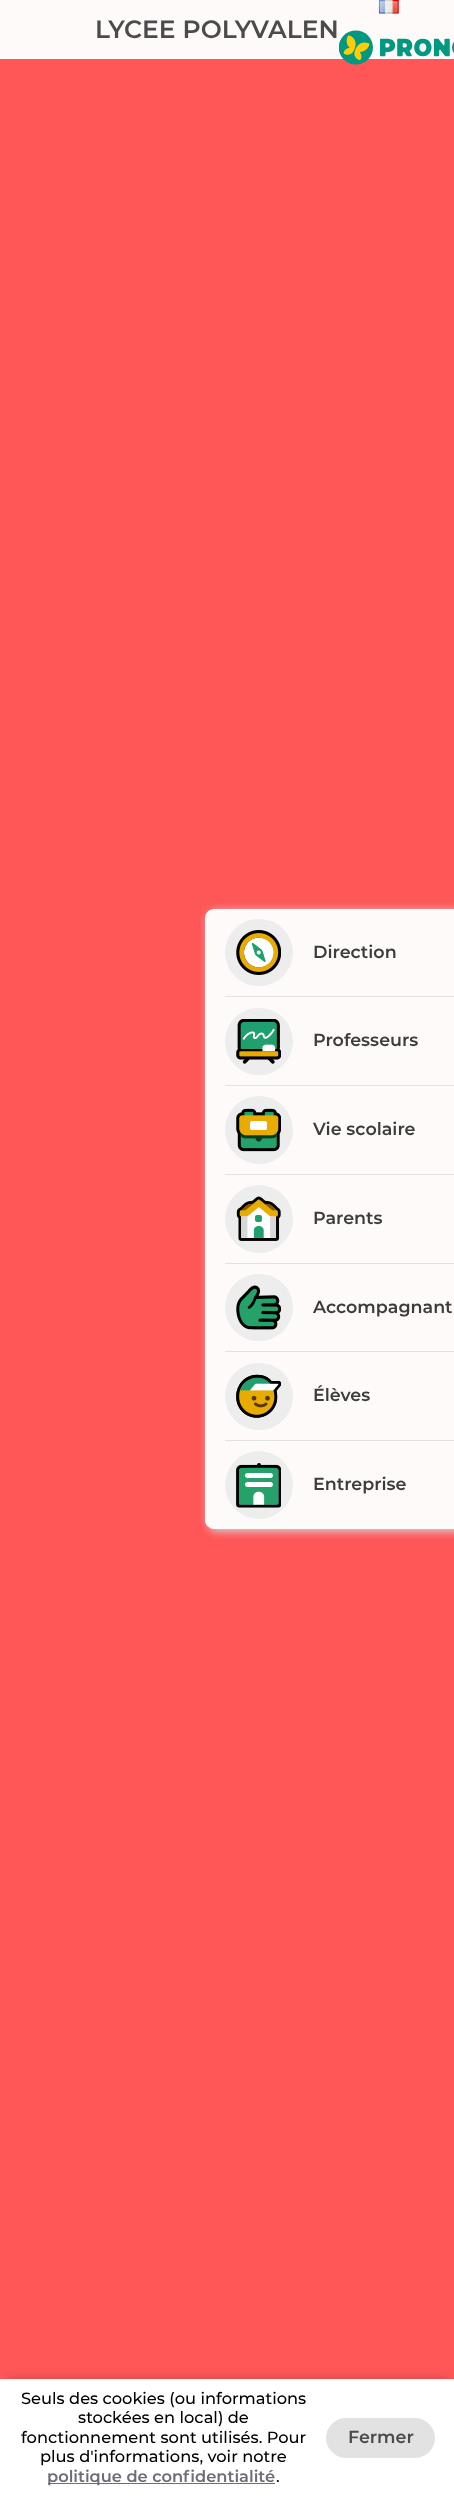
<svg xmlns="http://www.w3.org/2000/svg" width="454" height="2496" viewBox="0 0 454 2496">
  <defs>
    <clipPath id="clip1"><path d="M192 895H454V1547H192ZM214 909H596C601 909 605 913 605 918V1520C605 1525 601 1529 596 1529H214C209 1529 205 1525 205 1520V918C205 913 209 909 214 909Z" clip-rule="evenodd"/></clipPath>
  </defs>
  <rect width="100%" height="100%" fill="#ff5657"/>
  <path d="M0 0h454v59H0z" fill="#fffafa"/>
  <image x="378" y="0" width="21" height="14" href="img/1.png"/>
  <image x="339" y="30" width="115" height="35" href="img/2.png"/>
  <g clip-path="url(#clip1)">
    <rect x="208" y="911" width="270" height="620" rx="9" fill="#d9dbdc" filter="blur(5px)"/>
  </g>
  <path d="M214 909H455V1529H214C209 1529 205 1525 205 1520V918C205 913 209 909 214 909Z" fill="#fffffff7"/>
  <rect x="225" y="919" width="68" height="67" rx="33.5" fill="#ededed"/>
  <image x="236" y="930" width="45" height="45" href="img/3.png"/>
  <path d="M225 996h229v1H225z" fill="#e2e2e2"/>
  <rect x="225" y="1008" width="68" height="67" rx="33.5" fill="#ededed"/>
  <image x="236" y="1019" width="45" height="45" href="img/4.png"/>
  <path d="M225 1085h229v1H225z" fill="#e2e2e2"/>
  <circle cx="259" cy="1130" r="34" fill="#ededed"/>
  <image x="236" y="1108" width="45" height="44" href="img/5.png"/>
  <path d="M225 1174h229v1H225z" fill="#e2e2e2"/>
  <circle cx="259" cy="1219" r="34" fill="#ededed"/>
  <image x="236" y="1196" width="45" height="45" href="img/6.png"/>
  <path d="M225 1263h229v1H225z" fill="#e2e2e2"/>
  <rect x="225" y="1274" width="68" height="67" rx="33.5" fill="#ededed"/>
  <image x="236" y="1285" width="45" height="45" href="img/7.png"/>
  <path d="M225 1351h229v1H225z" fill="#e2e2e2"/>
  <rect x="225" y="1363" width="68" height="67" rx="33.5" fill="#ededed"/>
  <image x="236" y="1374" width="45" height="44" href="img/8.png"/>
  <path d="M225 1440h229v1H225z" fill="#e2e2e2"/>
  <circle cx="259" cy="1485" r="34" fill="#ededed"/>
  <image x="236" y="1463" width="45" height="45" href="img/9.png"/>
  <path d="M8 2378h440v102H8z" fill="#00000029" filter="blur(4px)"/>
  <path d="M0 2379h454v117H0z" fill="#fff"/>
  <path d="M48 2483h227v1H48z" fill="#6b6e77"/>
  <rect x="326.5" y="2418.5" width="108" height="39" rx="19.5" fill="#e2e2e2" stroke="#e2e2e2"/>
  <text x="95" y="38" font-family="Montserrat" font-size="25" font-weight="600" fill="#4b4b4b">LYCEE POLYVALEN</text>
  <g font-family="Montserrat" font-size="17.5" font-weight="600" fill="#3c3c3c">
    <text x="313" y="958">Direction</text>
    <text x="313" y="1046">Professeurs</text>
    <text x="313" y="1135">Vie scolaire</text>
    <text x="313" y="1224">Parents</text>
    <text x="313" y="1313">Accompagnant</text>
    <text x="313" y="1401">Élèves</text>
    <text x="313" y="1490">Entreprise</text>
  </g>
  <g font-family="Montserrat" font-size="16.25" font-weight="500" fill="#000">
    <text x="21" y="2404">Seuls des cookies (ou informations</text>
    <text x="78" y="2423">stockées en local) de</text>
    <text x="21" y="2443">fonctionnement sont utilisés. Pour</text>
    <text x="40" y="2462">plus d'informations, voir notre</text>
  </g>
  <text x="47" y="2482" font-family="Montserrat" font-size="16.25" font-weight="600" fill="#6b6e77">politique de confidentialité</text>
  <text x="276" y="2482" font-family="Montserrat" font-size="16.25" font-weight="500" fill="#000">.</text>
  <text x="348" y="2443" font-family="Montserrat" font-size="17.5" font-weight="600" fill="#4b4b4b">Fermer</text>
</svg>
